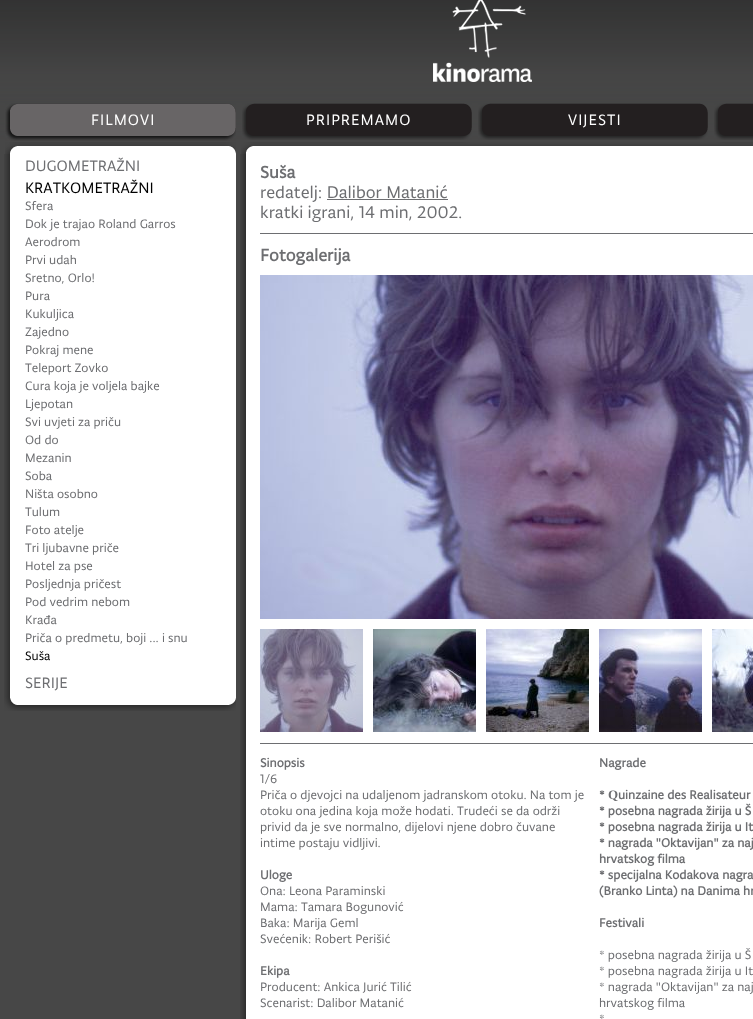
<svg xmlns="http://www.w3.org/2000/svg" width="753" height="1019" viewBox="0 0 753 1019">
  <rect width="100%" height="100%" fill="#fff"/>
  <image x="0" y="0" width="753" height="1019" href="img/1.png"/>
  <image x="433" y="0" width="99" height="82" href="img/2.png"/>
  <image x="5" y="103" width="231" height="38" href="img/3.png"/>
  <image x="242" y="103" width="230" height="37" href="img/4.png"/>
  <image x="478" y="103" width="230" height="37" href="img/4.png"/>
  <image x="714" y="103" width="39" height="37" href="img/5.png"/>
  <image x="5" y="142" width="231" height="12" href="img/6.png"/>
  <image x="4" y="154" width="232" height="543" href="img/7.png"/>
  <image x="4" y="697" width="232" height="14" href="img/8.png"/>
  <image x="241" y="142" width="512" height="12" href="img/9.png"/>
  <image x="240" y="154" width="513" height="865" href="img/10.png"/>
  <path d="M327 199h121v1H327z" fill="#6d6e71"/>
  <path d="M260 233h493v1H260z" fill="#6d6e71"/>
  <image x="260" y="275" width="493" height="344" href="img/11.png"/>
  <image x="260" y="629" width="103" height="103" href="img/12.png"/>
  <image x="373" y="629" width="103" height="103" href="img/13.png"/>
  <image x="486" y="629" width="103" height="103" href="img/14.png"/>
  <image x="599" y="629" width="103" height="103" href="img/15.png"/>
  <image x="712" y="629" width="41" height="103" href="img/16.png"/>
  <path d="M260 743h493v1H260z" fill="#6d6e71"/>
  <g font-family="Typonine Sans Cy" font-size="16" letter-spacing="1" fill="#fff">
    <text x="91" y="125">FILMOVI</text>
    <text x="306" y="125">PRIPREMAMO</text>
    <text x="568" y="125">VIJESTI</text>
  </g>
  <text x="25" y="171" font-family="Typonine Sans Cy" font-size="16" fill="#6d6e71">DUGOMETRAŽNI</text>
  <text x="25" y="193" font-family="Typonine Sans Cy" font-size="16" fill="#000">KRATKOMETRAŽNI</text>
  <g font-family="Typonine Sans Cy" font-size="13" fill="#6d6e71">
    <text x="25" y="210">Sfera</text>
    <text x="25" y="228">Dok je trajao Roland Garros</text>
    <text x="25" y="246">Aerodrom</text>
    <text x="25" y="264">Prvi udah</text>
    <text x="25" y="282">Sretno, Orlo!</text>
    <text x="25" y="300">Pura</text>
    <text x="25" y="318">Kukuljica</text>
    <text x="25" y="336">Zajedno</text>
    <text x="25" y="354">Pokraj mene</text>
    <text x="25" y="372">Teleport Zovko</text>
    <text x="25" y="390">Cura koja je voljela bajke</text>
    <text x="25" y="408">Ljepotan</text>
    <text x="25" y="426">Svi uvjeti za priču</text>
    <text x="25" y="444">Od do</text>
    <text x="25" y="462">Mezanin</text>
    <text x="25" y="480">Soba</text>
    <text x="25" y="498">Ništa osobno</text>
    <text x="25" y="516">Tulum</text>
    <text x="25" y="534">Foto atelje</text>
    <text x="25" y="552">Tri ljubavne priče</text>
    <text x="25" y="570">Hotel za pse</text>
    <text x="25" y="588">Posljednja pričest</text>
    <text x="25" y="606">Pod vedrim nebom</text>
    <text x="25" y="624">Krađa</text>
    <text x="25" y="642">Priča o predmetu, boji ... i snu</text>
  </g>
  <text x="25" y="660" font-family="Typonine Sans Cy" font-size="13" fill="#000">Suša</text>
  <text x="25" y="688" font-family="Typonine Sans Cy" font-size="16" fill="#6d6e71">SERIJE</text>
  <text x="260" y="178" font-family="Typonine Sans Cy" font-size="18" font-weight="bold" fill="#6d6e71">Suša</text>
  <g font-family="Typonine Sans Cy" font-size="18" fill="#6d6e71">
    <text x="260" y="198">redatelj: Dalibor Matanić</text>
    <text x="260" y="218">kratki igrani, 14 min, 2002.</text>
  </g>
  <text x="260" y="261" font-family="Typonine Sans Cy" font-size="18" font-weight="bold" fill="#6d6e71">Fotogalerija</text>
  <text x="260" y="767" font-family="Typonine Sans Cy" font-size="13" font-weight="bold" fill="#6d6e71">Sinopsis</text>
  <g font-family="Typonine Sans Cy" font-size="13" fill="#6d6e71">
    <text x="260" y="783">1/6</text>
    <text x="260" y="799">Priča o djevojci na udaljenom jadranskom otoku. Na tom je</text>
    <text x="260" y="815">otoku ona jedina koja može hodati. Trudeći se da održi</text>
    <text x="260" y="831">privid da je sve normalno, dijelovi njene dobro čuvane</text>
    <text x="260" y="847">intime postaju vidljivi.</text>
  </g>
  <text x="260" y="879" font-family="Typonine Sans Cy" font-size="13" font-weight="bold" fill="#6d6e71">Uloge</text>
  <g font-family="Typonine Sans Cy" font-size="13" fill="#6d6e71">
    <text x="260" y="895">Ona: Leona Paraminski</text>
    <text x="260" y="911">Mama: Tamara Bogunović</text>
    <text x="260" y="927">Baka: Marija Geml</text>
    <text x="260" y="943">Svećenik: Robert Perišić</text>
  </g>
  <text x="260" y="975" font-family="Typonine Sans Cy" font-size="13" font-weight="bold" fill="#6d6e71">Ekipa</text>
  <g font-family="Typonine Sans Cy" font-size="13" fill="#6d6e71">
    <text x="260" y="991">Producent: Ankica Jurić Tilić</text>
    <text x="260" y="1007">Scenarist: Dalibor Matanić</text>
  </g>
  <g font-family="Typonine Sans Cy" font-size="13" font-weight="bold" fill="#6d6e71">
    <text x="599" y="767">Nagrade</text>
    <text x="599" y="799">*</text>
  </g>
  <text x="608" y="799" font-family="Liberation Serif" font-size="13" font-weight="bold" fill="#6d6e71">Q</text>
  <g font-family="Typonine Sans Cy" font-size="13" font-weight="bold" fill="#6d6e71">
    <text x="618" y="799">uinzaine des Realisateur</text>
    <text x="599" y="815">* posebna nagrada žirija u Š</text>
    <text x="599" y="831">* posebna nagrada žirija u It</text>
    <text x="599" y="847">* nagrada "Oktavijan" za naj</text>
    <text x="599" y="863">hrvatskog filma</text>
    <text x="599" y="879">* specijalna Kodakova nagra</text>
    <text x="599" y="895">(Branko Linta) na Danima hr</text>
    <text x="599" y="927">Festivali</text>
  </g>
  <g font-family="Typonine Sans Cy" font-size="13" fill="#6d6e71">
    <text x="599" y="959">* posebna nagrada žirija u Š</text>
    <text x="599" y="975">* posebna nagrada žirija u It</text>
    <text x="599" y="991">* nagrada "Oktavijan" za naj</text>
    <text x="599" y="1007">hrvatskog filma</text>
    <text x="599" y="1023">*</text>
  </g>
</svg>
